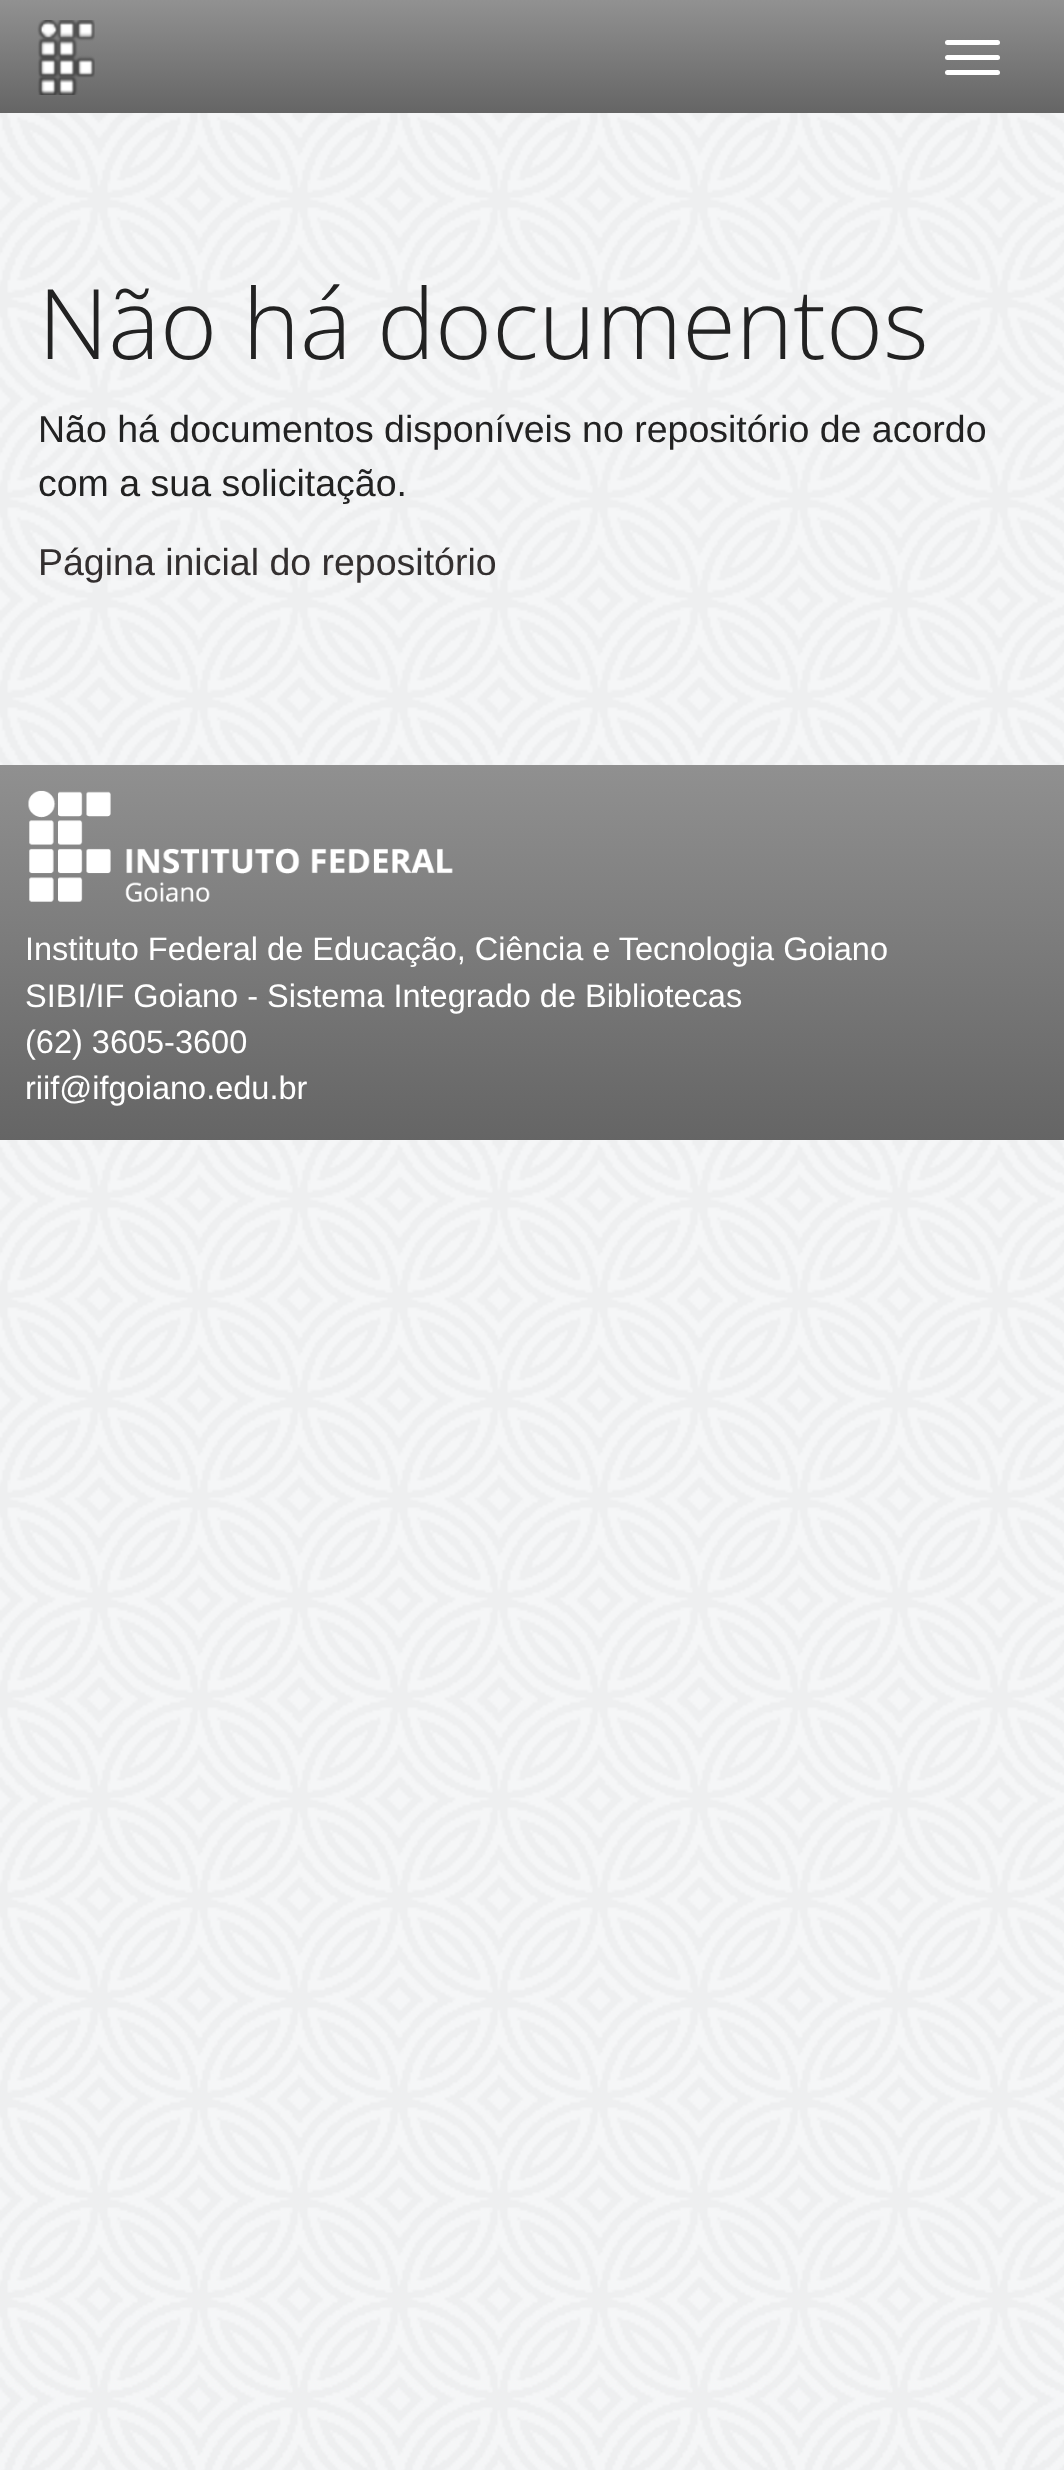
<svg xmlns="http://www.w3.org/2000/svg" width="1064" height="2470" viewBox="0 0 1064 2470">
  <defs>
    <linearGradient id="g1" gradientUnits="userSpaceOnUse" x1="533" y1="0" x2="533" y2="113"><stop offset="0" stop-color="#919191"/><stop offset="1" stop-color="#656565"/></linearGradient>
    <linearGradient id="g2" gradientUnits="userSpaceOnUse" x1="533" y1="765" x2="533" y2="1140"><stop offset="0" stop-color="#909090"/><stop offset="1" stop-color="#656565"/></linearGradient>
  </defs>
  <rect width="100%" height="100%" fill="#fff"/>
  <image x="0" y="113" width="1064" height="2357" href="img/1.png"/>
  <path d="M0 0h1064v113H0z" fill="url(#g1)"/>
  <image x="37" y="20" width="58" height="75" href="img/2.png"/>
  <rect x="945" y="40" width="55" height="5" rx="2.5" fill="#fff"/>
  <rect x="945" y="55" width="55" height="5" rx="2.5" fill="#fff"/>
  <rect x="945" y="70" width="55" height="5" rx="2.5" fill="#fff"/>
  <path d="M0 765h1064v375H0z" fill="url(#g2)"/>
  <image x="28" y="790" width="425" height="112" href="img/3.png"/>
  <text x="38" y="359" font-family="Open Sans" font-size="97.5" font-weight="300" fill="#222">Não há documentos</text>
  <g font-family="Liberation Sans" font-size="37.5" fill="#222">
    <text x="38" y="442">Não há documentos disponíveis no repositório de acordo</text>
    <text x="38" y="496">com a sua solicitação.</text>
  </g>
  <text x="38" y="575" font-family="Liberation Sans" font-size="37.5" fill="#332f2f">Página inicial do repositório</text>
  <g font-family="Liberation Sans" font-size="32.5" fill="#fff">
    <text x="25" y="960">Instituto Federal de Educação, Ciência e Tecnologia Goiano</text>
    <text x="25" y="1007">SIBI/IF Goiano - Sistema Integrado de Bibliotecas</text>
    <text x="25" y="1053">(62) 3605-3600</text>
    <text x="25" y="1099">riif@ifgoiano.edu.br</text>
  </g>
</svg>
